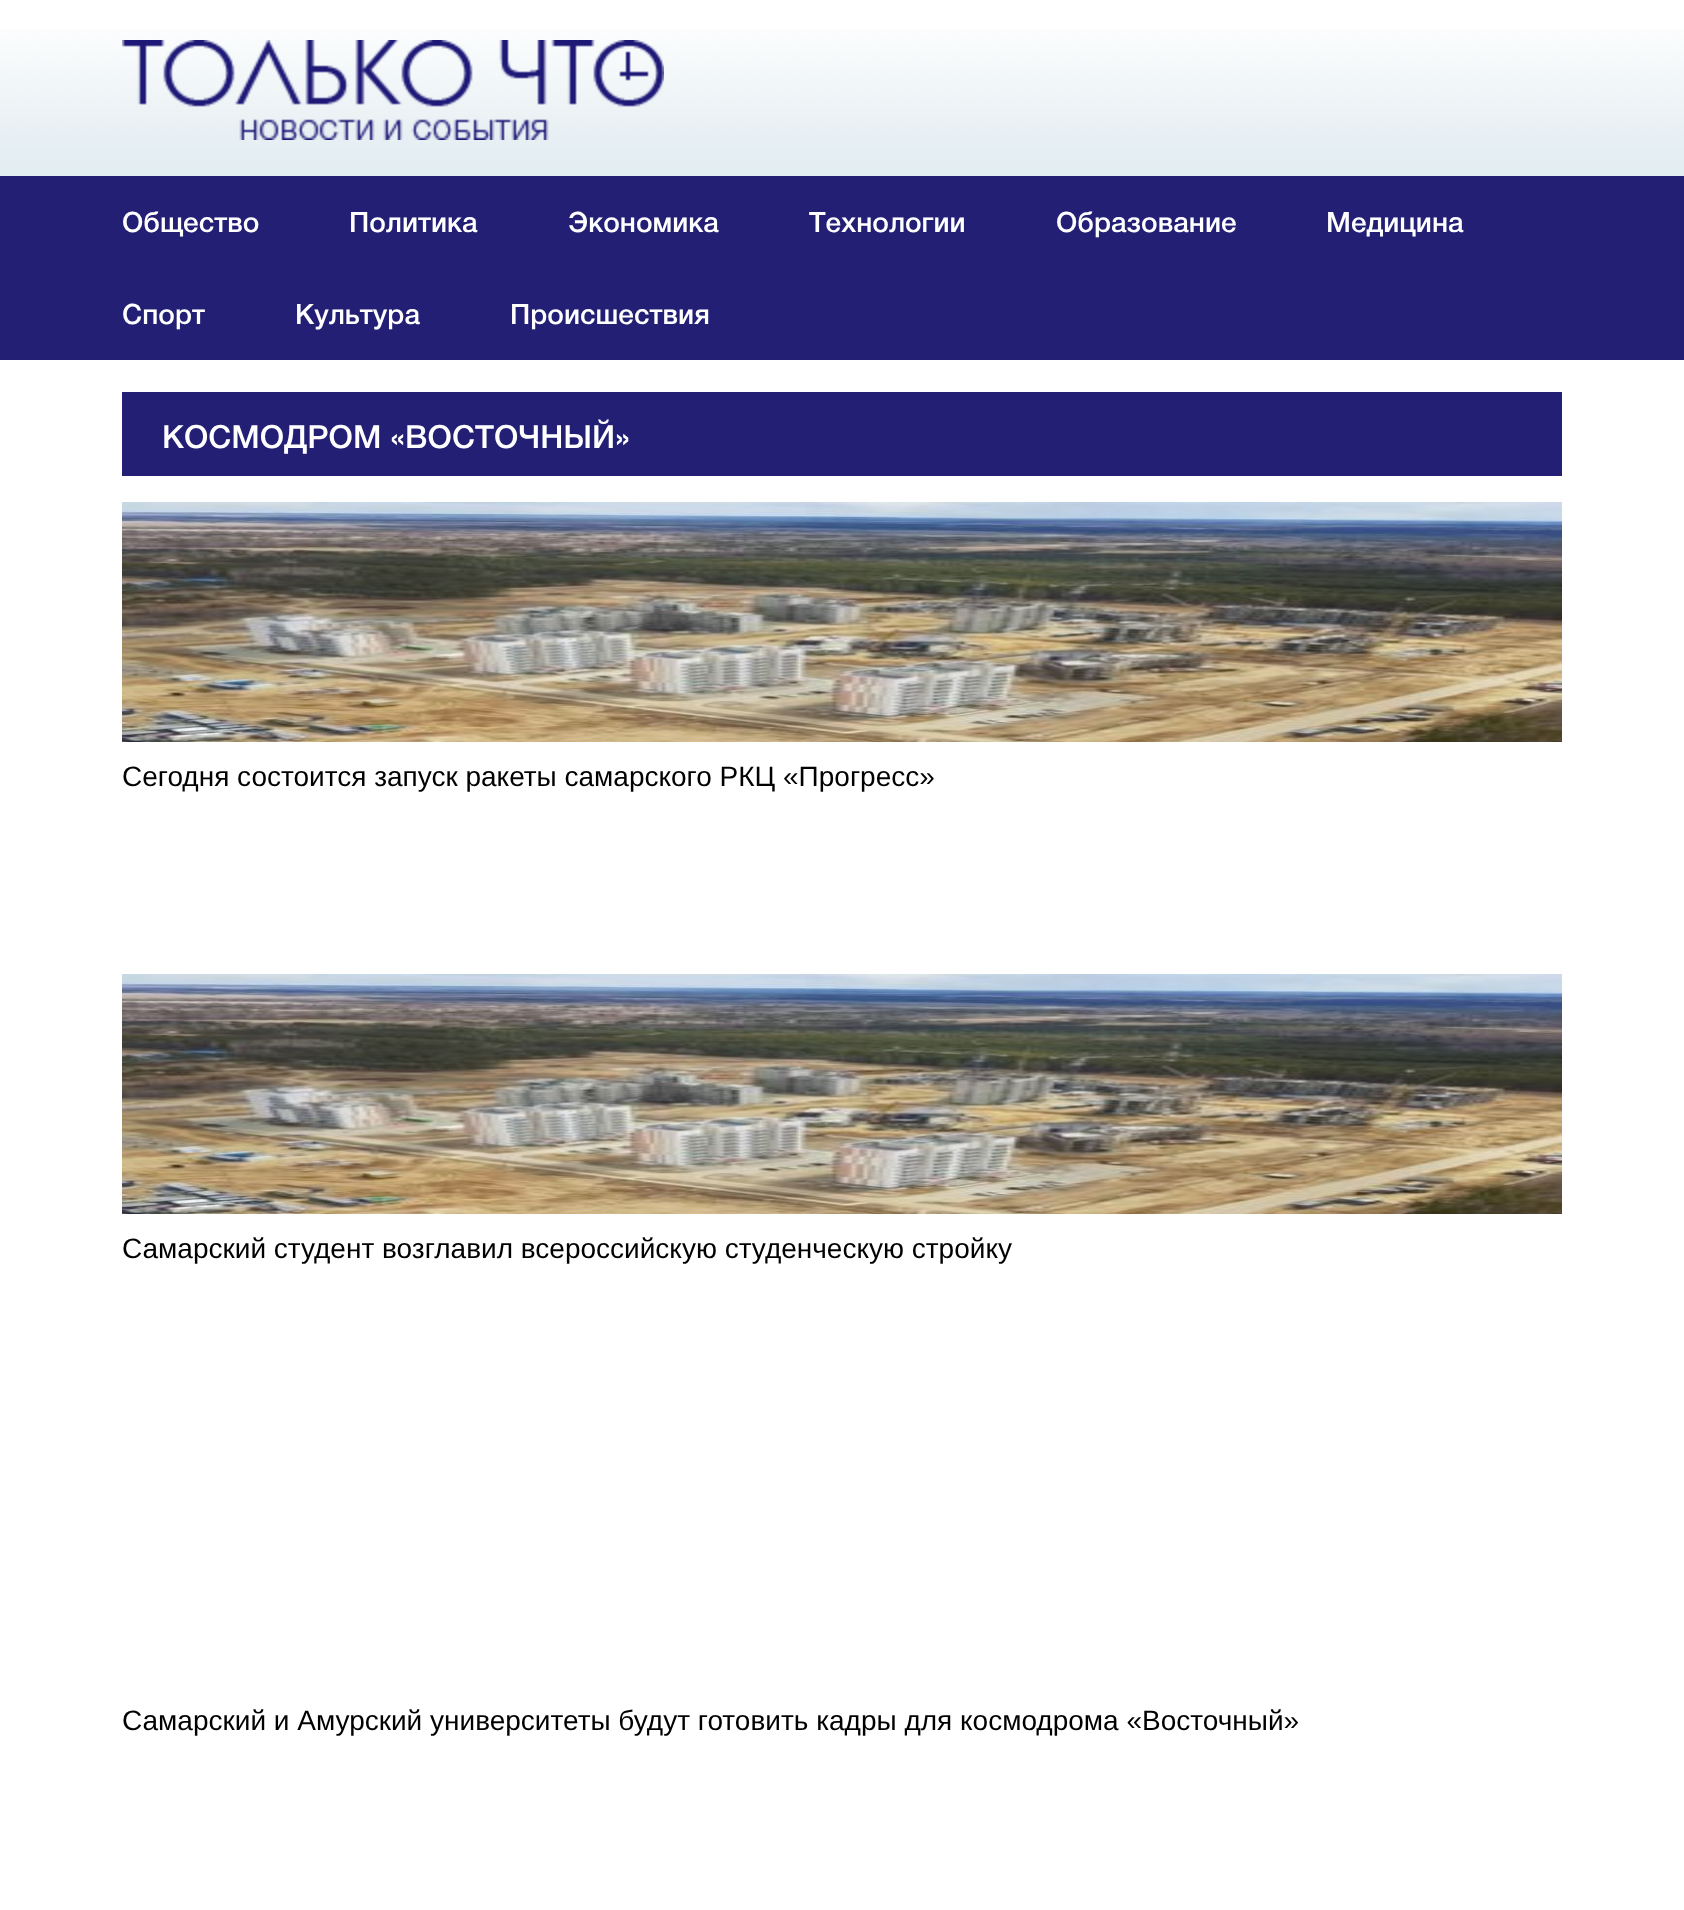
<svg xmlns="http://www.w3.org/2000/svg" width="1684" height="1910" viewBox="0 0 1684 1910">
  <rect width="100%" height="100%" fill="#fff"/>
  <image x="0" y="29" width="1684" height="147" href="img/1.png"/>
  <image x="122" y="40" width="542" height="100" href="img/2.png"/>
  <path d="M0 176h1684v184H0z" fill="#221f74"/>
  <path d="M122 392h1440v84H122z" fill="#221f74"/>
  <image x="122" y="502" width="1440" height="240" href="img/3.png"/>
  <image x="122" y="974" width="1440" height="240" href="img/3.png"/>
  <g font-family="'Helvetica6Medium'" font-size="28" font-weight="500" fill="#fff">
    <text x="122" y="232">Общество</text>
    <text x="349" y="232">Политика</text>
    <text x="568" y="232">Экономика</text>
    <text x="809" y="232">Технологии</text>
    <text x="1056" y="232">Образование</text>
    <text x="1326" y="232">Медицина</text>
    <text x="122" y="324">Спорт</text>
    <text x="295" y="324">Культура</text>
    <text x="510" y="324">Происшествия</text>
  </g>
  <text x="162" y="448" font-family="'Helvetica6Medium'" font-size="32" font-weight="500" fill="#fff">КОСМОДРОМ «ВОСТОЧНЫЙ»</text>
  <g font-family="Liberation Sans" font-size="28" fill="#000">
    <text x="122" y="786">Сегодня состоится запуск ракеты самарского РКЦ «Прогресс»</text>
    <text x="122" y="1258">Самарский студент возглавил всероссийскую студенческую стройку</text>
    <text x="122" y="1730">Самарский и Амурский университеты будут готовить кадры для космодрома «Восточный»</text>
  </g>
</svg>
